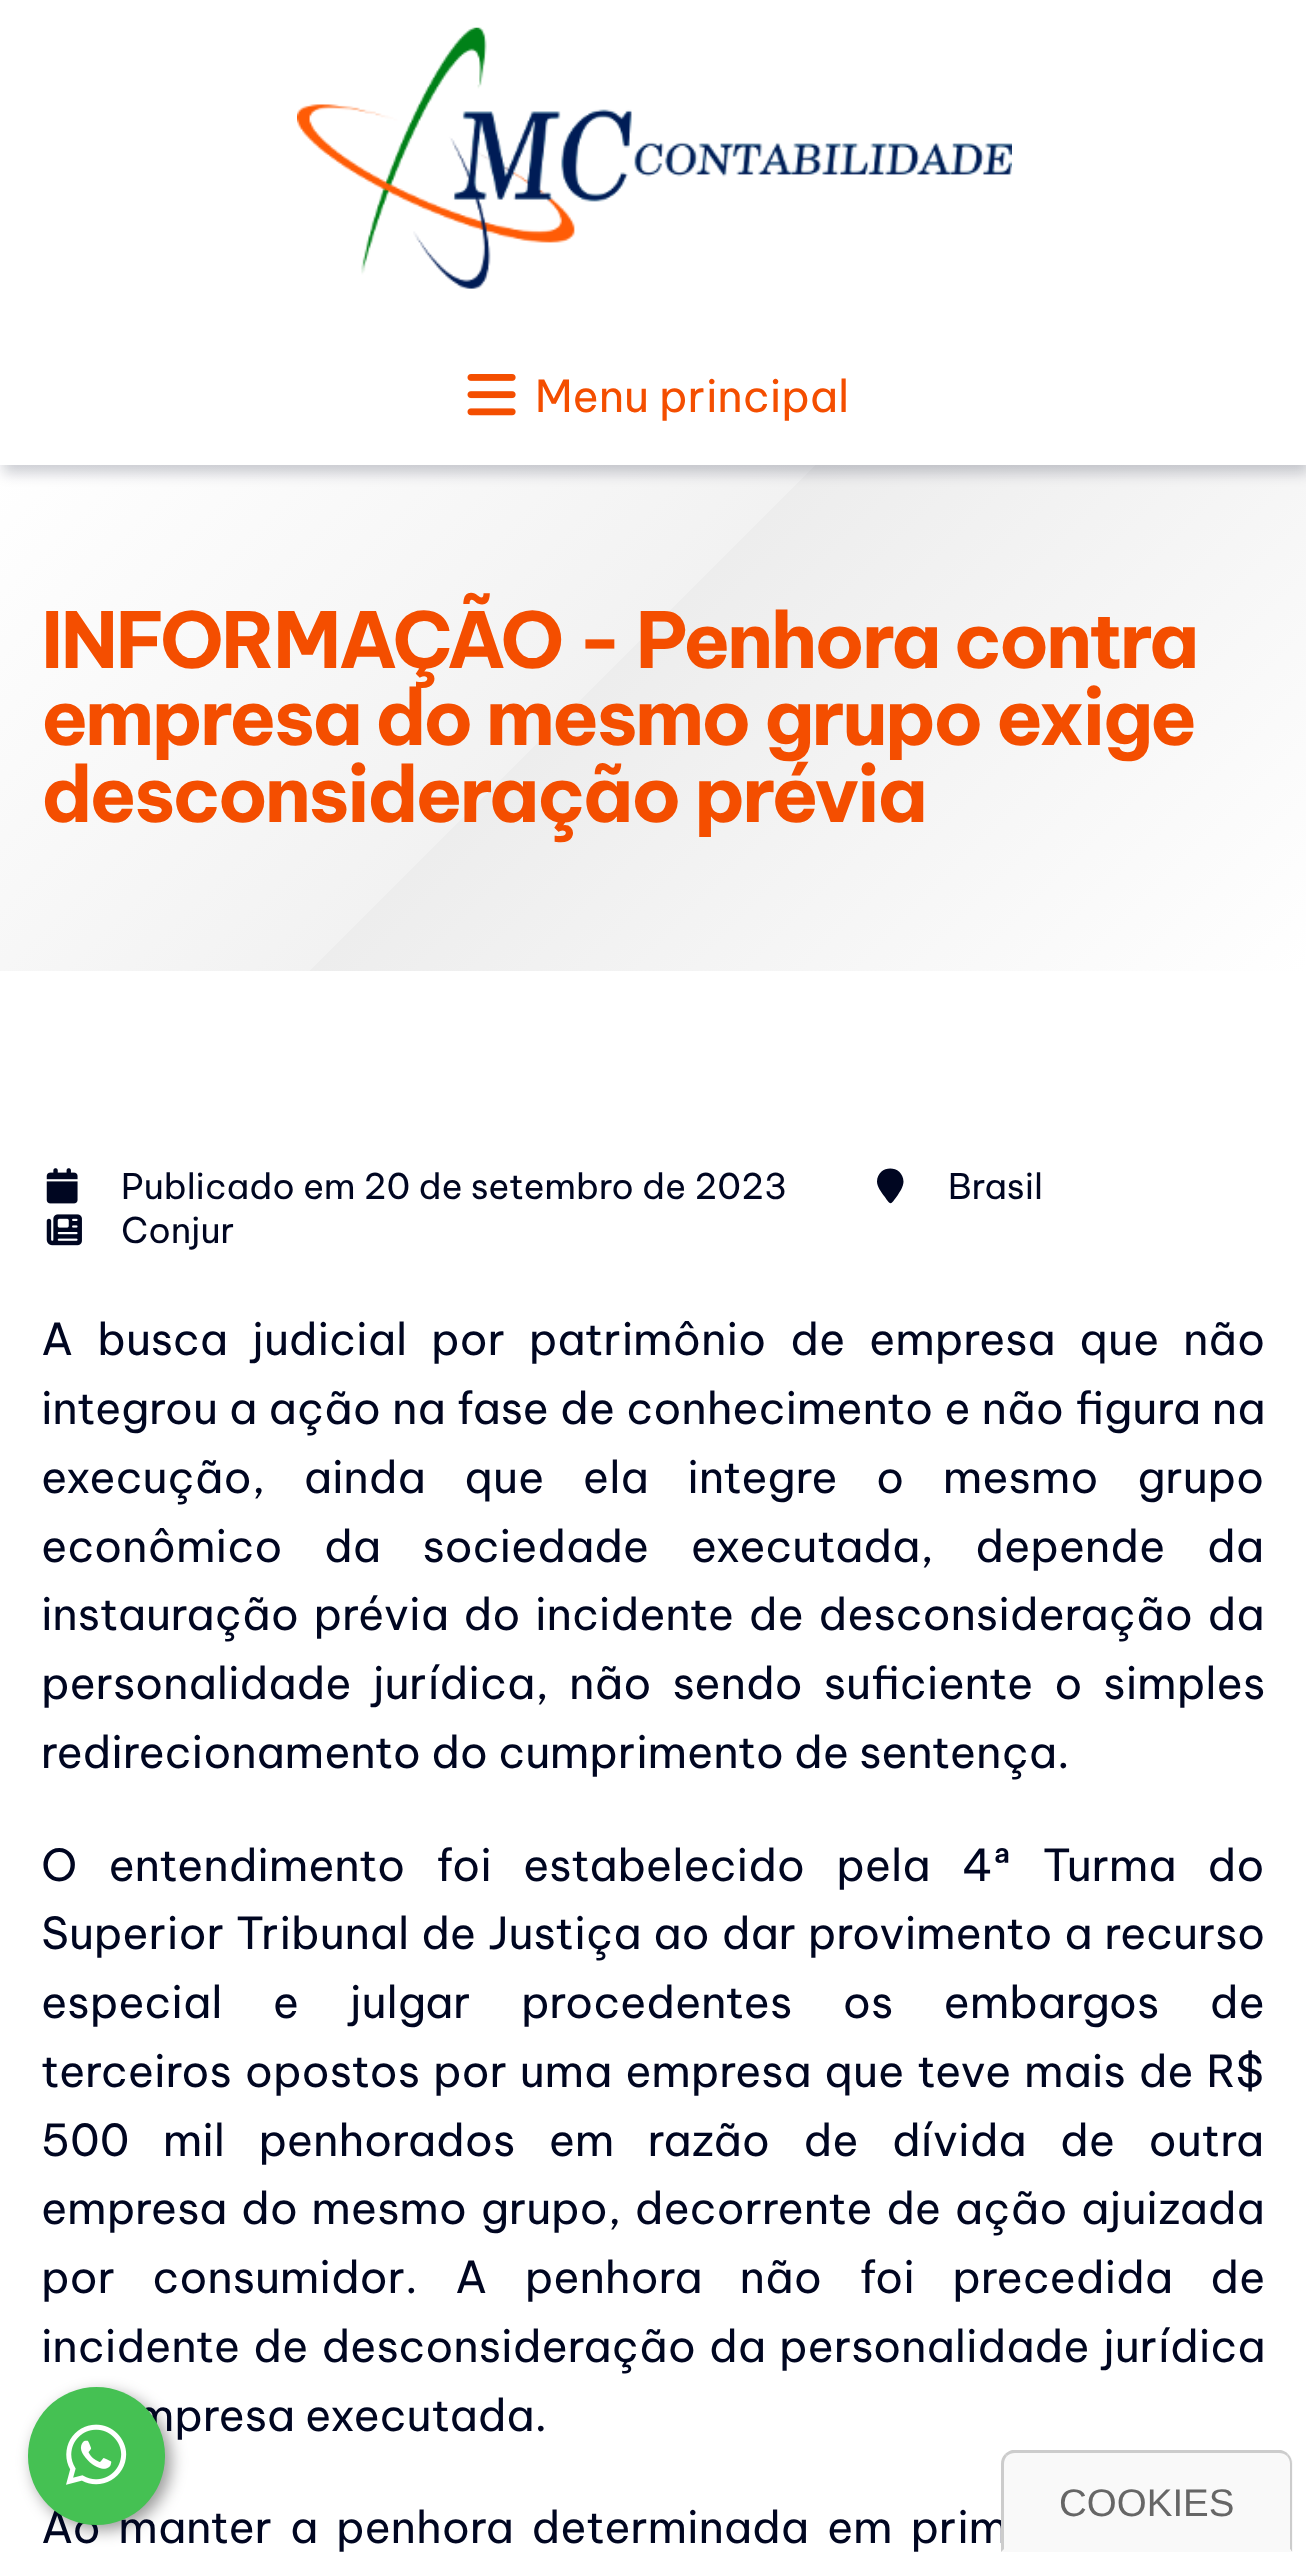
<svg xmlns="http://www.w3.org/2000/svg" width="1306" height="2552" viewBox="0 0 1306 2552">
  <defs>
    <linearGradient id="g1" gradientUnits="userSpaceOnUse" x1="200" y1="265" x2="1106" y2="1171"><stop offset="0" stop-color="#fff"/><stop offset="0.45" stop-color="#f2f2f2"/><stop offset="0.45" stop-color="#ededed"/><stop offset="1" stop-color="#fff"/></linearGradient>
  </defs>
  <rect width="100%" height="100%" fill="#fff"/>
  <path d="M0 465h1306v506H0z" fill="url(#g1)"/>
  <path d="M3 8h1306v465H3z" fill="#00062133" filter="blur(7px)"/>
  <path d="M0 0h1306v465H0z" fill="#fff"/>
  <image x="297" y="27" width="715" height="262" href="img/1.png"/>
  <image x="467" y="374" width="49" height="42" href="img/2.png"/>
  <image x="46" y="1168" width="32" height="36" href="img/3.png"/>
  <path d="M903.5 1181.5C903.5 1186.5 900 1191.5 897.5 1195.5C890.5 1205 891 1206 884.5 1196.5C881.5 1192.5 877 1186.5 877 1181.5C877.5 1164 903 1164 903.5 1181.5Z" fill="#000621"/>
  <image x="46" y="1214" width="36" height="32" href="img/4.png"/>
  <rect x="33" y="2393" width="138" height="137" rx="68.5" fill="#00000066" filter="blur(8px)"/>
  <text x="535" y="412" font-family="Be Vietnam Pro" font-size="44" fill="#f44e00">Menu principal</text>
  <g font-family="Be Vietnam Pro" font-size="77" font-weight="bold" letter-spacing="-2.75" fill="#f44e00">
    <text x="41" y="668">INFORMAÇÃO - Penhora contra</text>
    <text x="41" y="745">empresa do mesmo grupo exige</text>
    <text x="41" y="822">desconsideração prévia</text>
  </g>
  <g font-family="Be Vietnam Pro" font-size="35.25" fill="#000621">
    <text x="121" y="1199">Publicado em 20 de setembro de 2023</text>
    <text x="948" y="1199">Brasil</text>
    <text x="121" y="1243">Conjur</text>
  </g>
  <g font-family="Be Vietnam Pro" font-size="44" fill="#000621">
    <text x="41" y="1355" word-spacing="13.75">A busca judicial por patrimônio de empresa que não</text>
    <text x="41" y="1424" word-spacing="1">integrou a ação na fase de conhecimento e não figura na</text>
    <text x="41" y="1493" word-spacing="28.5">execução, ainda que ela integre o mesmo grupo</text>
    <text x="41" y="1562" word-spacing="31.5">econômico da sociedade executada, depende da</text>
    <text x="41" y="1630" word-spacing="4.5">instauração prévia do incidente de desconsideração da</text>
    <text x="41" y="1699" word-spacing="10.75">personalidade jurídica, não sendo suficiente o simples</text>
    <text x="41" y="1768">redirecionamento do cumprimento de sentença.</text>
    <text x="41" y="1881" word-spacing="21">O entendimento foi estabelecido pela 4ª Turma do</text>
    <text x="41" y="1949" word-spacing="1.75">Superior Tribunal de Justiça ao dar provimento a recurso</text>
    <text x="41" y="2018" word-spacing="40.25">especial e julgar procedentes os embargos de</text>
    <text x="41" y="2087" word-spacing="2.75">terceiros opostos por uma empresa que teve mais de R$</text>
    <text x="41" y="2156" word-spacing="23.25">500 mil penhorados em razão de dívida de outra</text>
    <text x="41" y="2224" word-spacing="3.5">empresa do mesmo grupo, decorrente de ação ajuizada</text>
    <text x="41" y="2293" word-spacing="27.25">por consumidor. A penhora não foi precedida de</text>
    <text x="41" y="2362" word-spacing="3">incidente de desconsideração da personalidade jurídica</text>
    <text x="135" y="2431">mpresa executada.</text>
    <text x="41" y="2543" word-spacing="7.75">Ao manter a penhora determinada em prim</text>
  </g>
  <rect x="28" y="2387" width="137" height="138" rx="68.5" fill="#45c153"/>
  <image x="66" y="2424" width="61" height="61" href="img/5.png"/>
  <path d="M1015 2450H1279C1286.5 2450 1293 2456.5 1293 2464V2552H1001V2464C1001 2456.5 1007.5 2450 1015 2450Z" fill="#f9f9f9"/>
  <path d="M1015 2453C1012 2453 1009 2454 1007 2456L1005 2454C1007 2452 1009 2451 1012 2450H1281C1284 2451 1287 2452 1288 2454L1287 2456C1285 2454 1282 2453 1279 2453Z" fill="#ccc"/>
  <path d="M1288 2454C1291 2457 1292 2460 1292 2464V2552L1290 2549V2464C1290 2461 1289 2458 1287 2456Z" fill="#ccc"/>
  <path d="M1292 2552L1290 2549H1004L1001 2552Z" fill="#f9f9f9"/>
  <path d="M1001 2552L1004 2549V2464C1004 2461 1005 2458 1007 2456L1005 2454C1002 2457 1001 2460 1001 2464Z" fill="#ccc"/>
  <text x="1059" y="2516" font-family="Liberation Sans" font-size="38.5" fill="#666">COOKIES</text>
</svg>
